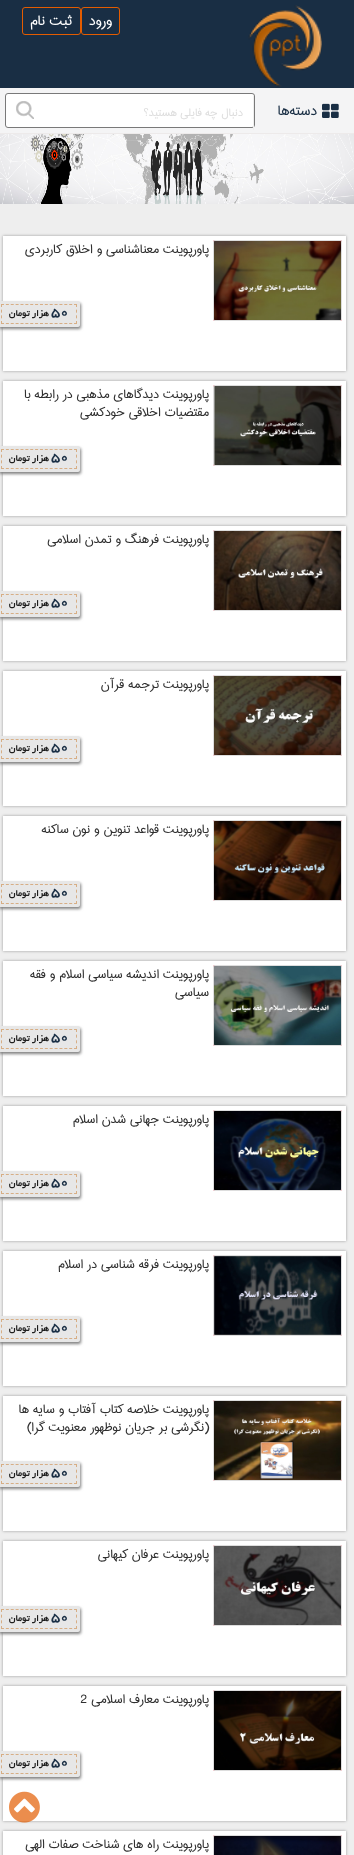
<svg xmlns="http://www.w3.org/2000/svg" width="354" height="1855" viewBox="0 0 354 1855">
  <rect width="100%" height="100%" fill="#eee"/>
  <path d="M0 133h354v1H0z" fill="#edeaea"/>
  <path d="M0 0h354v88H0z" fill="#192e44"/>
  <image x="248" y="5" width="74" height="82" href="img/1.png"/>
  <rect x="81.5" y="7.5" width="38" height="27" rx="2.5" fill="none" stroke="#e35c00"/>
  <rect x="22.5" y="7.5" width="58" height="27" rx="2.5" fill="none" stroke="#e35c00"/>
  <path d="M0 88h354v45H0z" fill="#f4f4f5"/>
  <image x="322" y="103" width="17" height="15" href="img/2.png"/>
  <rect x="5.5" y="93.5" width="249" height="34" rx="2.5" fill="#fff" stroke="#797979"/>
  <path d="M253 96h1v34H253z" fill="#eee"/>
  <image x="16" y="101" width="18" height="18" href="img/3.png"/>
  <image x="0" y="134" width="354" height="70" href="img/4.png"/>
  <path d="M3 236h343v135H3z" fill="#00000059" filter="blur(1.5px)"/>
  <path d="M3 236h343v135H3z" fill="#fff"/>
  <image x="213" y="240" width="129" height="81" href="img/5.png"/>
  <rect x="213.5" y="240.5" width="128" height="80" rx="1.5" fill="none" stroke="#ddd"/>
  <image x="214" y="241" width="127" height="79" href="img/6.png"/>
  <rect x="-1" y="303" width="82" height="26" rx="2" fill="#808080" filter="blur(1.5px)"/>
  <path d="M0 301H78C79 301 80 302 80 303V325C80 326 79 327 78 327H0Z" fill="#e7e7e7"/>
  <path d="M1 304.5H77" fill="none" stroke="#d7ae85" stroke-dasharray="3 1.87"/>
  <path d="M76.5 304V324" fill="none" stroke="#d7ae85" stroke-dasharray="3 2.67"/>
  <path d="M1 323.5H77" fill="none" stroke="#d7ae85" stroke-dasharray="3 1.87"/>
  <path d="M1.5 304V324" fill="none" stroke="#d7ae85" stroke-dasharray="3 2.67"/>
  <path d="M3 381h343v135H3z" fill="#00000059" filter="blur(1.5px)"/>
  <path d="M3 381h343v135H3z" fill="#fff"/>
  <image x="213" y="385" width="129" height="81" href="img/7.png"/>
  <rect x="213.5" y="385.5" width="128" height="80" rx="1.5" fill="none" stroke="#ddd"/>
  <image x="214" y="386" width="127" height="79" href="img/8.png"/>
  <rect x="-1" y="448" width="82" height="26" rx="2" fill="#808080" filter="blur(1.5px)"/>
  <path d="M0 446H78C79 446 80 447 80 448V470C80 471 79 472 78 472H0Z" fill="#e7e7e7"/>
  <path d="M1 449.5H77" fill="none" stroke="#d7ae85" stroke-dasharray="3 1.87"/>
  <path d="M76.5 449V469" fill="none" stroke="#d7ae85" stroke-dasharray="3 2.67"/>
  <path d="M1 468.5H77" fill="none" stroke="#d7ae85" stroke-dasharray="3 1.87"/>
  <path d="M1.5 449V469" fill="none" stroke="#d7ae85" stroke-dasharray="3 2.67"/>
  <path d="M3 526h343v135H3z" fill="#00000059" filter="blur(1.5px)"/>
  <path d="M3 526h343v135H3z" fill="#fff"/>
  <image x="213" y="530" width="129" height="81" href="img/9.png"/>
  <rect x="213.5" y="530.5" width="128" height="80" rx="1.5" fill="none" stroke="#ddd"/>
  <image x="214" y="531" width="127" height="79" href="img/10.png"/>
  <rect x="-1" y="593" width="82" height="26" rx="2" fill="#808080" filter="blur(1.5px)"/>
  <path d="M0 591H78C79 591 80 592 80 593V615C80 616 79 617 78 617H0Z" fill="#e7e7e7"/>
  <path d="M1 594.5H77" fill="none" stroke="#d7ae85" stroke-dasharray="3 1.87"/>
  <path d="M76.5 594V614" fill="none" stroke="#d7ae85" stroke-dasharray="3 2.67"/>
  <path d="M1 613.5H77" fill="none" stroke="#d7ae85" stroke-dasharray="3 1.87"/>
  <path d="M1.5 594V614" fill="none" stroke="#d7ae85" stroke-dasharray="3 2.67"/>
  <path d="M3 671h343v135H3z" fill="#00000059" filter="blur(1.5px)"/>
  <path d="M3 671h343v135H3z" fill="#fff"/>
  <image x="213" y="675" width="129" height="81" href="img/11.png"/>
  <rect x="213.5" y="675.5" width="128" height="80" rx="1.5" fill="none" stroke="#ddd"/>
  <image x="214" y="676" width="127" height="79" href="img/12.png"/>
  <rect x="-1" y="738" width="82" height="26" rx="2" fill="#808080" filter="blur(1.5px)"/>
  <path d="M0 736H78C79 736 80 737 80 738V760C80 761 79 762 78 762H0Z" fill="#e7e7e7"/>
  <path d="M1 739.5H77" fill="none" stroke="#d7ae85" stroke-dasharray="3 1.87"/>
  <path d="M76.5 739V759" fill="none" stroke="#d7ae85" stroke-dasharray="3 2.67"/>
  <path d="M1 758.5H77" fill="none" stroke="#d7ae85" stroke-dasharray="3 1.87"/>
  <path d="M1.5 739V759" fill="none" stroke="#d7ae85" stroke-dasharray="3 2.67"/>
  <path d="M3 816h343v135H3z" fill="#00000059" filter="blur(1.5px)"/>
  <path d="M3 816h343v135H3z" fill="#fff"/>
  <image x="213" y="820" width="129" height="81" href="img/13.png"/>
  <rect x="213.5" y="820.5" width="128" height="80" rx="1.5" fill="none" stroke="#ddd"/>
  <image x="214" y="821" width="127" height="79" href="img/14.png"/>
  <rect x="-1" y="883" width="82" height="26" rx="2" fill="#808080" filter="blur(1.5px)"/>
  <path d="M0 881H78C79 881 80 882 80 883V905C80 906 79 907 78 907H0Z" fill="#e7e7e7"/>
  <path d="M1 884.5H77" fill="none" stroke="#d7ae85" stroke-dasharray="3 1.87"/>
  <path d="M76.5 884V904" fill="none" stroke="#d7ae85" stroke-dasharray="3 2.67"/>
  <path d="M1 903.5H77" fill="none" stroke="#d7ae85" stroke-dasharray="3 1.87"/>
  <path d="M1.5 884V904" fill="none" stroke="#d7ae85" stroke-dasharray="3 2.67"/>
  <path d="M3 961h343v135H3z" fill="#00000059" filter="blur(1.5px)"/>
  <path d="M3 961h343v135H3z" fill="#fff"/>
  <image x="213" y="965" width="129" height="81" href="img/15.png"/>
  <rect x="213.5" y="965.5" width="128" height="80" rx="1.5" fill="none" stroke="#ddd"/>
  <image x="214" y="966" width="127" height="79" href="img/16.png"/>
  <rect x="-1" y="1028" width="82" height="26" rx="2" fill="#808080" filter="blur(1.5px)"/>
  <path d="M0 1026H78C79 1026 80 1027 80 1028V1050C80 1051 79 1052 78 1052H0Z" fill="#e7e7e7"/>
  <path d="M1 1029.5H77" fill="none" stroke="#d7ae85" stroke-dasharray="3 1.87"/>
  <path d="M76.5 1029V1049" fill="none" stroke="#d7ae85" stroke-dasharray="3 2.67"/>
  <path d="M1 1048.5H77" fill="none" stroke="#d7ae85" stroke-dasharray="3 1.87"/>
  <path d="M1.5 1029V1049" fill="none" stroke="#d7ae85" stroke-dasharray="3 2.67"/>
  <path d="M3 1106h343v135H3z" fill="#00000059" filter="blur(1.5px)"/>
  <path d="M3 1106h343v135H3z" fill="#fff"/>
  <image x="213" y="1110" width="129" height="81" href="img/17.png"/>
  <rect x="213.5" y="1110.5" width="128" height="80" rx="1.5" fill="none" stroke="#ddd"/>
  <image x="214" y="1111" width="127" height="79" href="img/18.png"/>
  <rect x="-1" y="1173" width="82" height="26" rx="2" fill="#808080" filter="blur(1.5px)"/>
  <path d="M0 1171H78C79 1171 80 1172 80 1173V1195C80 1196 79 1197 78 1197H0Z" fill="#e7e7e7"/>
  <path d="M1 1174.5H77" fill="none" stroke="#d7ae85" stroke-dasharray="3 1.87"/>
  <path d="M76.5 1174V1194" fill="none" stroke="#d7ae85" stroke-dasharray="3 2.67"/>
  <path d="M1 1193.5H77" fill="none" stroke="#d7ae85" stroke-dasharray="3 1.87"/>
  <path d="M1.5 1174V1194" fill="none" stroke="#d7ae85" stroke-dasharray="3 2.67"/>
  <path d="M3 1251h343v135H3z" fill="#00000059" filter="blur(1.5px)"/>
  <path d="M3 1251h343v135H3z" fill="#fff"/>
  <image x="213" y="1255" width="129" height="81" href="img/19.png"/>
  <rect x="213.5" y="1255.5" width="128" height="80" rx="1.5" fill="none" stroke="#ddd"/>
  <image x="214" y="1256" width="127" height="79" href="img/20.png"/>
  <rect x="-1" y="1318" width="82" height="26" rx="2" fill="#808080" filter="blur(1.5px)"/>
  <path d="M0 1316H78C79 1316 80 1317 80 1318V1340C80 1341 79 1342 78 1342H0Z" fill="#e7e7e7"/>
  <path d="M1 1319.5H77" fill="none" stroke="#d7ae85" stroke-dasharray="3 1.87"/>
  <path d="M76.5 1319V1339" fill="none" stroke="#d7ae85" stroke-dasharray="3 2.67"/>
  <path d="M1 1338.5H77" fill="none" stroke="#d7ae85" stroke-dasharray="3 1.87"/>
  <path d="M1.5 1319V1339" fill="none" stroke="#d7ae85" stroke-dasharray="3 2.67"/>
  <path d="M3 1396h343v135H3z" fill="#00000059" filter="blur(1.5px)"/>
  <path d="M3 1396h343v135H3z" fill="#fff"/>
  <image x="213" y="1400" width="129" height="81" href="img/21.png"/>
  <rect x="213.5" y="1400.5" width="128" height="80" rx="1.5" fill="none" stroke="#ddd"/>
  <image x="214" y="1401" width="127" height="79" href="img/22.png"/>
  <rect x="-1" y="1463" width="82" height="26" rx="2" fill="#808080" filter="blur(1.5px)"/>
  <path d="M0 1461H78C79 1461 80 1462 80 1463V1485C80 1486 79 1487 78 1487H0Z" fill="#e7e7e7"/>
  <path d="M1 1464.5H77" fill="none" stroke="#d7ae85" stroke-dasharray="3 1.87"/>
  <path d="M76.5 1464V1484" fill="none" stroke="#d7ae85" stroke-dasharray="3 2.67"/>
  <path d="M1 1483.5H77" fill="none" stroke="#d7ae85" stroke-dasharray="3 1.87"/>
  <path d="M1.5 1464V1484" fill="none" stroke="#d7ae85" stroke-dasharray="3 2.67"/>
  <path d="M3 1541h343v135H3z" fill="#00000059" filter="blur(1.5px)"/>
  <path d="M3 1541h343v135H3z" fill="#fff"/>
  <image x="213" y="1545" width="129" height="81" href="img/23.png"/>
  <rect x="213.5" y="1545.5" width="128" height="80" rx="1.5" fill="none" stroke="#ddd"/>
  <image x="214" y="1546" width="127" height="79" href="img/24.png"/>
  <rect x="-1" y="1608" width="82" height="26" rx="2" fill="#808080" filter="blur(1.5px)"/>
  <path d="M0 1606H78C79 1606 80 1607 80 1608V1630C80 1631 79 1632 78 1632H0Z" fill="#e7e7e7"/>
  <path d="M1 1609.5H77" fill="none" stroke="#d7ae85" stroke-dasharray="3 1.87"/>
  <path d="M76.5 1609V1629" fill="none" stroke="#d7ae85" stroke-dasharray="3 2.67"/>
  <path d="M1 1628.5H77" fill="none" stroke="#d7ae85" stroke-dasharray="3 1.87"/>
  <path d="M1.5 1609V1629" fill="none" stroke="#d7ae85" stroke-dasharray="3 2.67"/>
  <path d="M3 1686h343v135H3z" fill="#00000059" filter="blur(1.5px)"/>
  <path d="M3 1686h343v135H3z" fill="#fff"/>
  <image x="213" y="1690" width="129" height="81" href="img/25.png"/>
  <rect x="213.5" y="1690.5" width="128" height="80" rx="1.5" fill="none" stroke="#ddd"/>
  <image x="214" y="1691" width="127" height="79" href="img/26.png"/>
  <rect x="-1" y="1753" width="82" height="26" rx="2" fill="#808080" filter="blur(1.5px)"/>
  <path d="M0 1751H78C79 1751 80 1752 80 1753V1775C80 1776 79 1777 78 1777H0Z" fill="#e7e7e7"/>
  <path d="M1 1754.5H77" fill="none" stroke="#d7ae85" stroke-dasharray="3 1.87"/>
  <path d="M76.5 1754V1774" fill="none" stroke="#d7ae85" stroke-dasharray="3 2.67"/>
  <path d="M1 1773.5H77" fill="none" stroke="#d7ae85" stroke-dasharray="3 1.87"/>
  <path d="M1.5 1754V1774" fill="none" stroke="#d7ae85" stroke-dasharray="3 2.67"/>
  <path d="M3 1831h343v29H3z" fill="#00000059" filter="blur(1.5px)"/>
  <path d="M3 1831h343v24H3z" fill="#fff"/>
  <image x="213" y="1835" width="129" height="20" href="img/27.png"/>
  <rect x="213.5" y="1835.5" width="128" height="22" rx="1.5" fill="none" stroke="#ddd"/>
  <image x="214" y="1836" width="127" height="1" href="img/28.png"/>
  <image x="9" y="1791" width="31" height="32" href="img/29.png"/>
  <g font-family="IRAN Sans" font-size="18" direction="rtl" fill="#fff">
    <text x="112" y="25">ورود</text>
    <text x="72" y="25">ثبت نام</text>
  </g>
  <text x="317" y="115" font-family="IRAN Sans" font-size="18" direction="rtl" fill="#192e44">دسته‌ها</text>
  <text x="243" y="116" font-family="IRAN Sans" font-size="14" direction="rtl" fill="#dedede">دنبال چه فایلی هستید؟</text>
  <text x="209" y="253" font-family="IRAN Sans" font-size="16" direction="rtl" fill="#303030">پاورپوینت معناشناسی و اخلاق کاربردی</text>
  <text x="51" y="316" font-family="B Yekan" font-size="15" font-weight="bold" fill="#192e44">50</text>
  <text x="49" y="316" font-family="B Yekan" font-size="10" font-weight="bold" direction="rtl" fill="#1d1d1d">هزار تومان</text>
  <g font-family="IRAN Sans" font-size="16" direction="rtl" fill="#303030">
    <text x="209" y="398">پاورپوینت دیدگاهای مذهبی در رابطه با</text>
    <text x="209" y="416">مقتضیات اخلاقی خودکشی</text>
  </g>
  <text x="51" y="461" font-family="B Yekan" font-size="15" font-weight="bold" fill="#192e44">50</text>
  <text x="49" y="461" font-family="B Yekan" font-size="10" font-weight="bold" direction="rtl" fill="#1d1d1d">هزار تومان</text>
  <text x="209" y="543" font-family="IRAN Sans" font-size="16" direction="rtl" fill="#303030">پاورپوینت فرهنگ و تمدن اسلامی</text>
  <text x="51" y="606" font-family="B Yekan" font-size="15" font-weight="bold" fill="#192e44">50</text>
  <text x="49" y="606" font-family="B Yekan" font-size="10" font-weight="bold" direction="rtl" fill="#1d1d1d">هزار تومان</text>
  <text x="209" y="688" font-family="IRAN Sans" font-size="16" direction="rtl" fill="#303030">پاورپوینت ترجمه قرآن</text>
  <text x="51" y="751" font-family="B Yekan" font-size="15" font-weight="bold" fill="#192e44">50</text>
  <text x="49" y="751" font-family="B Yekan" font-size="10" font-weight="bold" direction="rtl" fill="#1d1d1d">هزار تومان</text>
  <text x="209" y="833" font-family="IRAN Sans" font-size="16" direction="rtl" fill="#303030">پاورپوینت قواعد تنوین و نون ساکنه</text>
  <text x="51" y="896" font-family="B Yekan" font-size="15" font-weight="bold" fill="#192e44">50</text>
  <text x="49" y="896" font-family="B Yekan" font-size="10" font-weight="bold" direction="rtl" fill="#1d1d1d">هزار تومان</text>
  <g font-family="IRAN Sans" font-size="16" direction="rtl" fill="#303030">
    <text x="209" y="978">پاورپوینت اندیشه سیاسی اسلام و فقه</text>
    <text x="209" y="996">سیاسی</text>
  </g>
  <text x="51" y="1041" font-family="B Yekan" font-size="15" font-weight="bold" fill="#192e44">50</text>
  <text x="49" y="1041" font-family="B Yekan" font-size="10" font-weight="bold" direction="rtl" fill="#1d1d1d">هزار تومان</text>
  <text x="209" y="1123" font-family="IRAN Sans" font-size="16" direction="rtl" fill="#303030">پاورپوینت جهانی شدن اسلام</text>
  <text x="51" y="1186" font-family="B Yekan" font-size="15" font-weight="bold" fill="#192e44">50</text>
  <text x="49" y="1186" font-family="B Yekan" font-size="10" font-weight="bold" direction="rtl" fill="#1d1d1d">هزار تومان</text>
  <text x="209" y="1268" font-family="IRAN Sans" font-size="16" direction="rtl" fill="#303030">پاورپوینت فرقه شناسی در اسلام</text>
  <text x="51" y="1331" font-family="B Yekan" font-size="15" font-weight="bold" fill="#192e44">50</text>
  <text x="49" y="1331" font-family="B Yekan" font-size="10" font-weight="bold" direction="rtl" fill="#1d1d1d">هزار تومان</text>
  <g font-family="IRAN Sans" font-size="16" direction="rtl" fill="#303030">
    <text x="209" y="1413">پاورپوینت خلاصه کتاب آفتاب و سایه ها</text>
    <text x="209" y="1431">(نگرشی بر جریان نوظهور معنویت گرا)</text>
  </g>
  <text x="51" y="1476" font-family="B Yekan" font-size="15" font-weight="bold" fill="#192e44">50</text>
  <text x="49" y="1476" font-family="B Yekan" font-size="10" font-weight="bold" direction="rtl" fill="#1d1d1d">هزار تومان</text>
  <text x="209" y="1558" font-family="IRAN Sans" font-size="16" direction="rtl" fill="#303030">پاورپوینت عرفان کیهانی</text>
  <text x="51" y="1621" font-family="B Yekan" font-size="15" font-weight="bold" fill="#192e44">50</text>
  <text x="49" y="1621" font-family="B Yekan" font-size="10" font-weight="bold" direction="rtl" fill="#1d1d1d">هزار تومان</text>
  <text x="209" y="1703" font-family="IRAN Sans" font-size="16" direction="rtl" fill="#303030">پاورپوینت معارف اسلامی</text>
  <text x="80" y="1703" font-family="IRAN Sans" font-size="16" fill="#303030">2</text>
  <text x="51" y="1766" font-family="B Yekan" font-size="15" font-weight="bold" fill="#192e44">50</text>
  <text x="49" y="1766" font-family="B Yekan" font-size="10" font-weight="bold" direction="rtl" fill="#1d1d1d">هزار تومان</text>
  <text x="209" y="1848" font-family="IRAN Sans" font-size="16" direction="rtl" fill="#303030">پاورپوینت راه های شناخت صفات الهی</text>
</svg>
